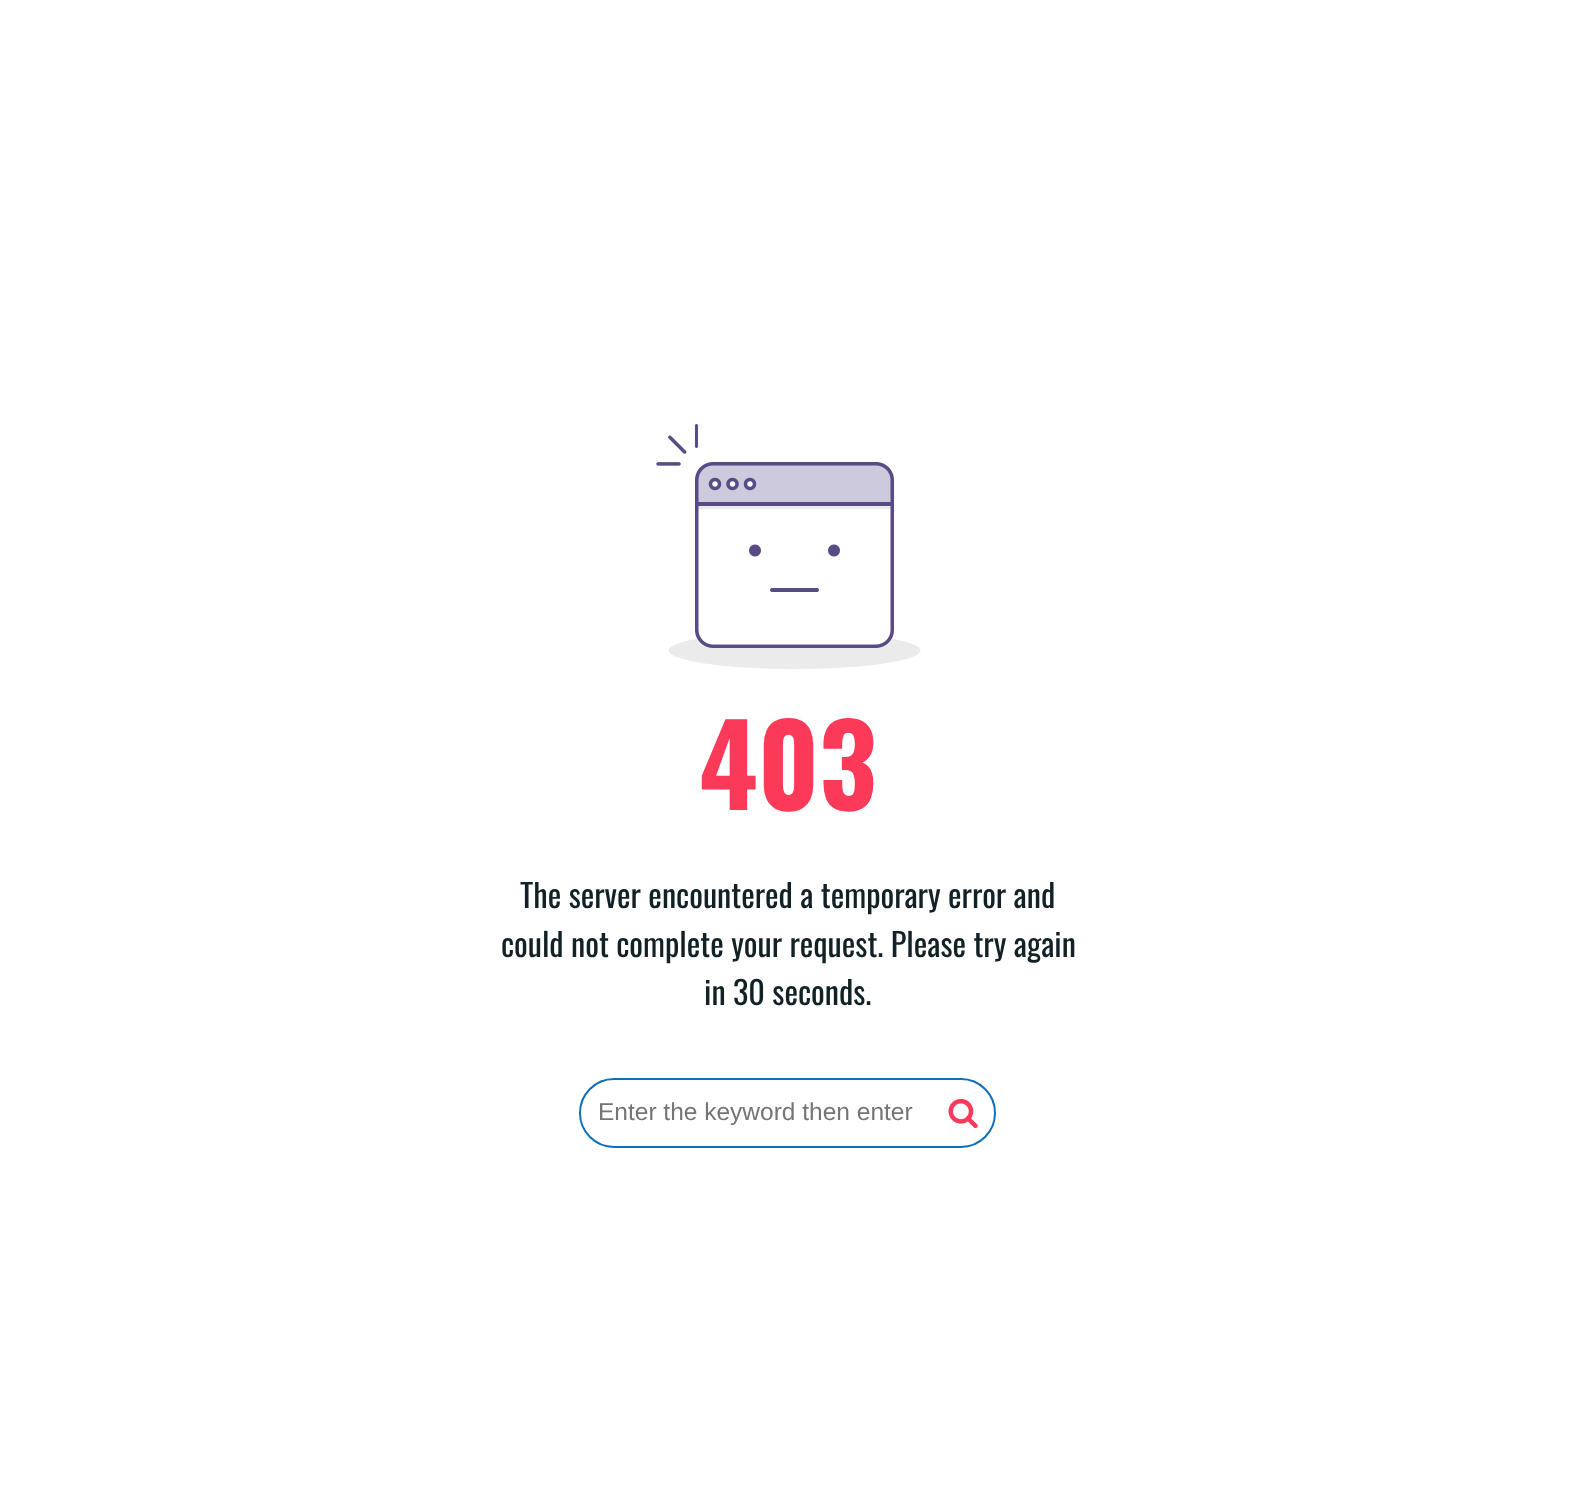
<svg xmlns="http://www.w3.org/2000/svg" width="1574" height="1500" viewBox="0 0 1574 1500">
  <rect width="100%" height="100%" fill="#fff"/>
  <image x="656" y="424" width="265" height="245" href="img/1.png"/>
  <rect x="580" y="1079" width="415" height="68" rx="34" fill="none" stroke="#106fba" stroke-width="2"/>
  <image x="948" y="1098" width="30" height="31" href="img/2.png"/>
  <text x="699" y="810" font-family="Oswald" font-size="112" font-weight="bold" fill="#fb3958">403</text>
  <g font-family="Oswald" font-size="32.25" fill="#122125">
    <text x="520" y="908">The server encountered a temporary error and</text>
    <text x="501" y="957">could not complete your request. Please try again</text>
    <text x="704" y="1005">in 30 seconds.</text>
  </g>
  <text x="598" y="1120" font-family="Liberation Sans" font-size="24.5" fill="#757575">Enter the keyword then enter</text>
</svg>
